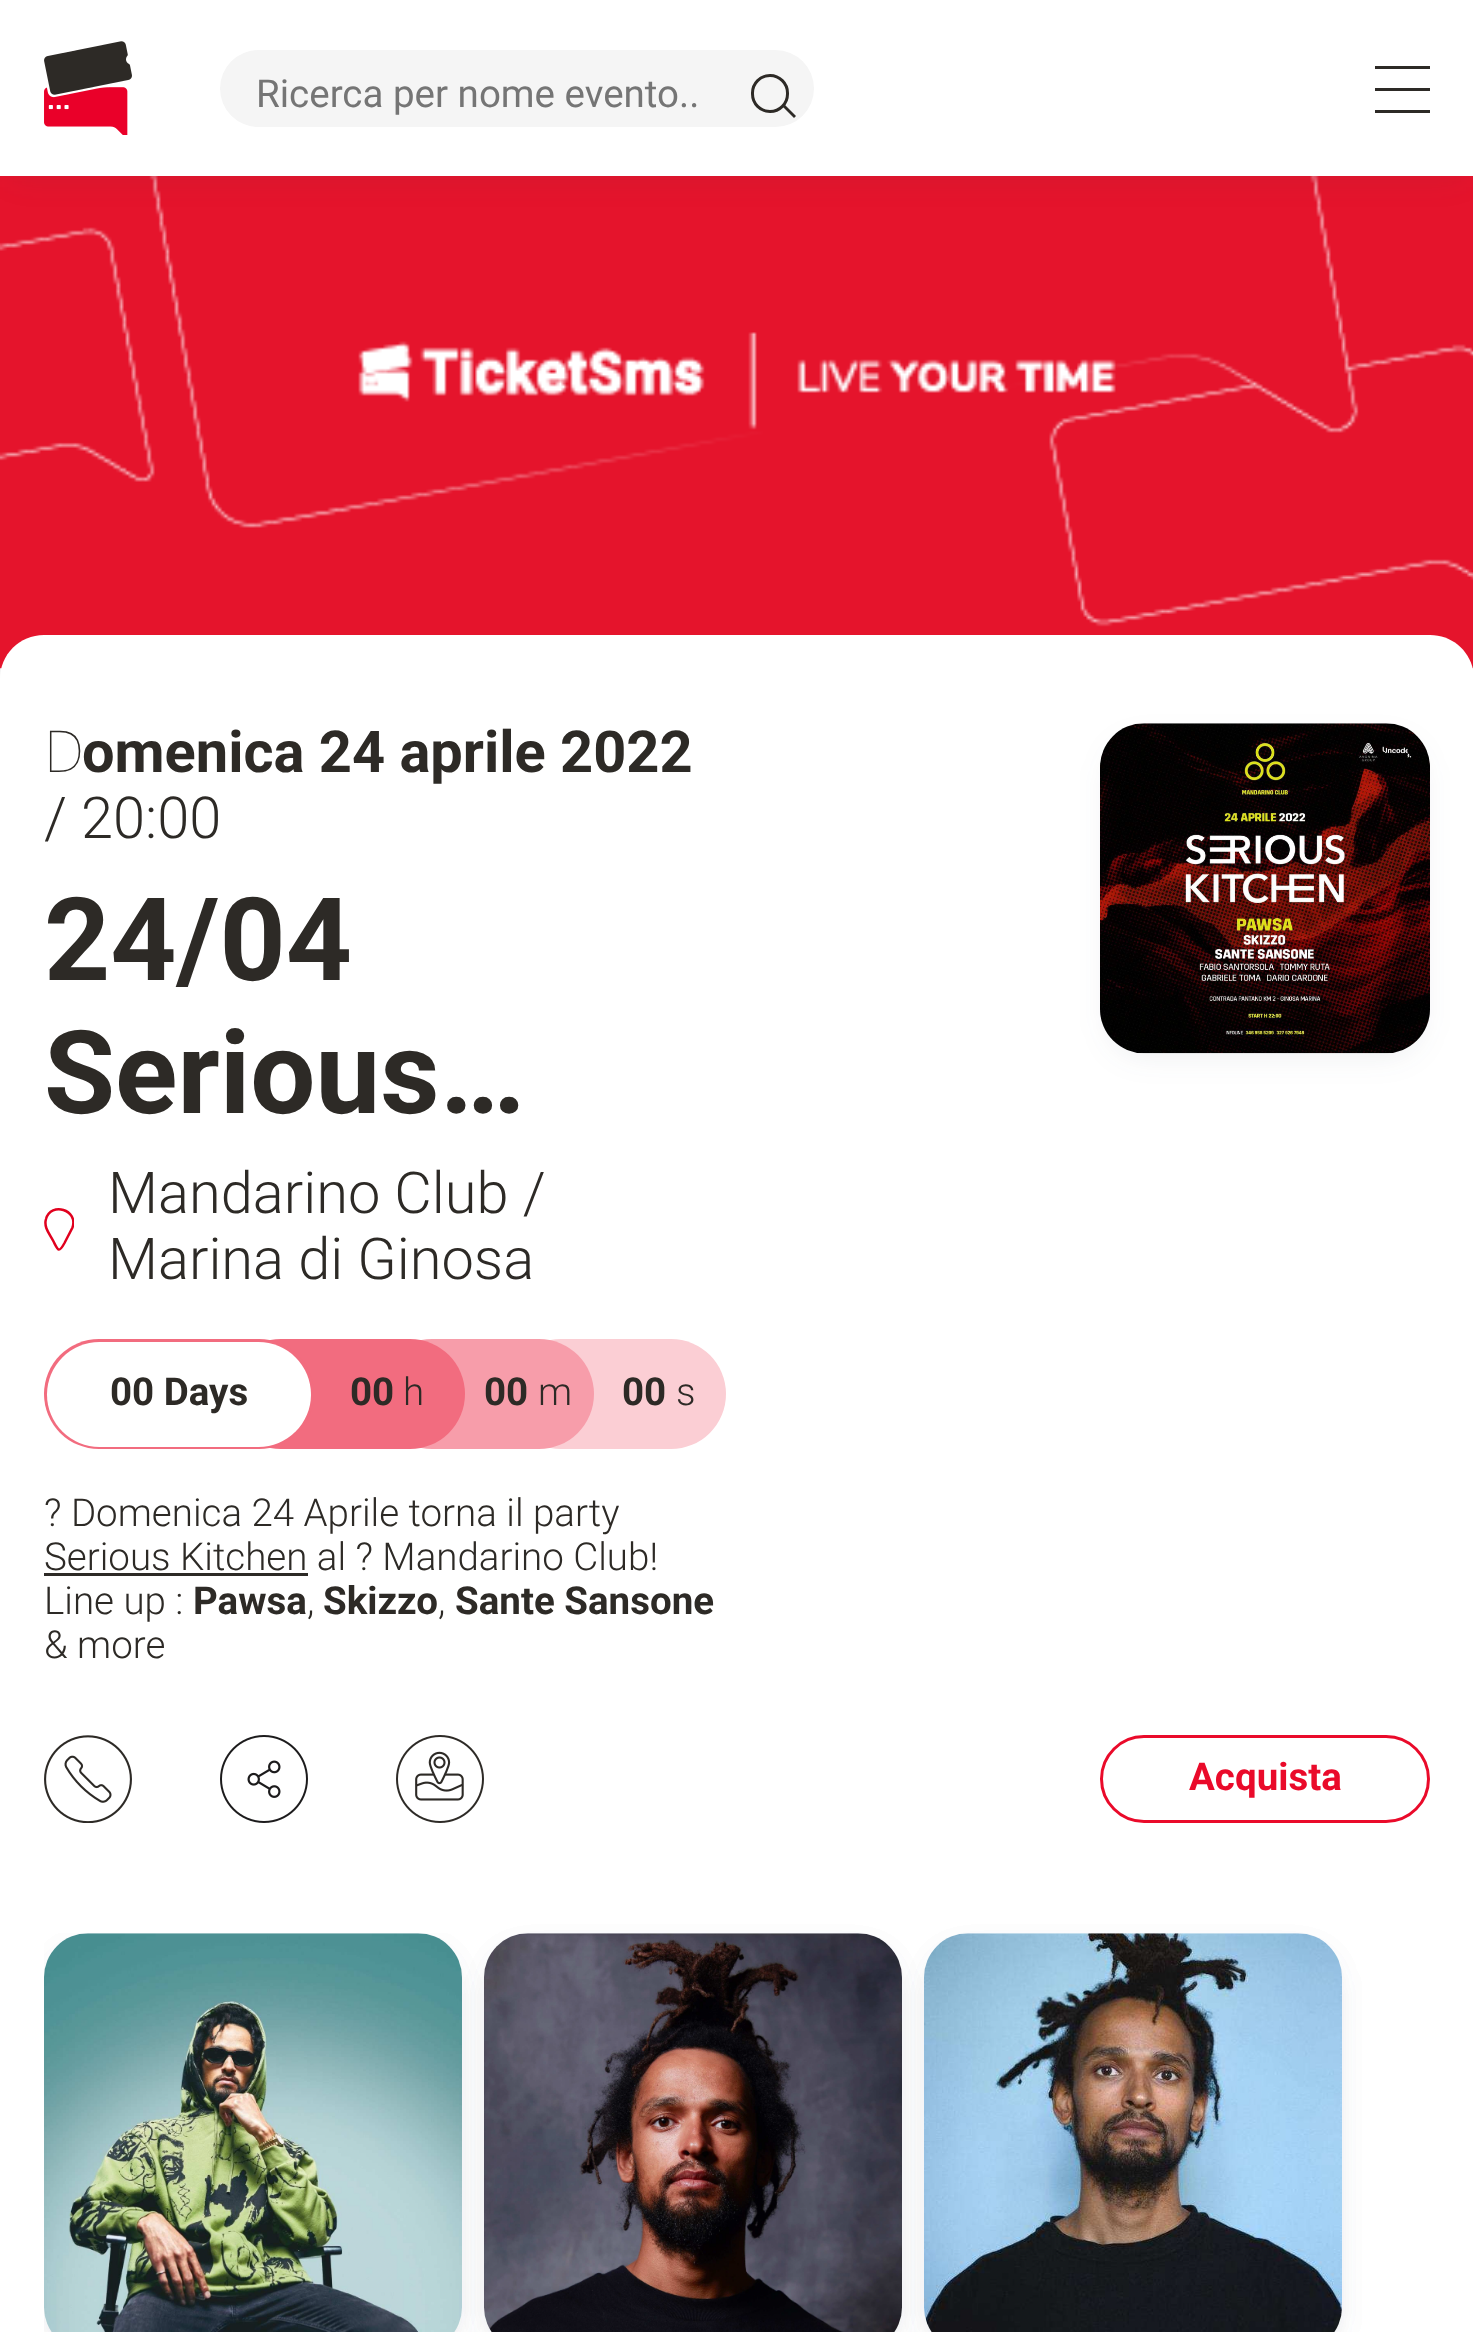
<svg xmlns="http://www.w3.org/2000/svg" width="1473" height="2332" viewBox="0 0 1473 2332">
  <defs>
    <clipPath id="clip1"><path d="M44 1207h30v44H44z"/></clipPath>
    <clipPath id="clip2"><path d="M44 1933h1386v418H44z"/></clipPath>
  </defs>
  <rect width="100%" height="100%" fill="#f2f2f2"/>
  <image x="0" y="176" width="1473" height="493" href="img/2.png"/>
  <path d="M11 22h1452v154H11z" fill="#2e374d1a" filter="blur(16.5px)"/>
  <path d="M0 0h1473v176H0z" fill="#fff"/>
  <image x="44" y="41" width="88" height="94" href="img/1.png"/>
  <rect x="220" y="50" width="594" height="77" rx="38.5" fill="#f5f5f5"/>
  <rect x="752.5" y="75.5" width="35" height="36" rx="17.5" fill="none" stroke="#2d2a26" stroke-width="3"/>
  <path d="M784.5 104.5L796 116L794 118L782.5 106.5Z" fill="#2d2a26"/>
  <path d="M1375 66h55v3H1375z" fill="#2d2a26"/>
  <path d="M1375 88h55v3H1375z" fill="#2d2a26"/>
  <path d="M1375 110h55v3H1375z" fill="#2d2a26"/>
  <path d="M44 635H1430C1454.5 635 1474 654.5 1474 679V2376H44C19.5 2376 0 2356.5 0 2332V679C0 654.5 19.5 635 44 635Z" fill="#fff"/>
  <g clip-path="url(#clip1)">
    <path d="M72.5 1227.5C78.5 1209.5 51 1201.5 46 1219C43.5 1227 49.5 1234 53 1240.5C58 1250 58.5 1254 64.5 1243Z" fill="none" stroke="#e1001e" stroke-width="2.5"/>
  </g>
  <rect x="506" y="1339" width="220" height="110" rx="55" fill="#fbced4"/>
  <rect x="377" y="1339" width="217" height="110" rx="55" fill="#f79daa"/>
  <rect x="226" y="1339" width="239" height="110" rx="55" fill="#f26c7f"/>
  <rect x="44" y="1339" width="270" height="110" rx="55" fill="#f26c7f"/>
  <rect x="47" y="1342" width="264" height="105" rx="52.5" fill="#fff"/>
  <path d="M44 1573h264v3H44z" fill="#2d2a26"/>
  <rect x="1111" y="745" width="308" height="308" rx="33" fill="#2e374d1a" filter="blur(16.5px)"/>
  <image x="1100" y="723" width="330" height="331" href="img/3.png"/>
  <image x="44" y="1735" width="88" height="88" href="img/4.png"/>
  <image x="220" y="1735" width="88" height="88" href="img/5.png"/>
  <image x="396" y="1735" width="88" height="88" href="img/6.png"/>
  <rect x="1101.5" y="1736.5" width="327" height="85" rx="42.5" fill="none" stroke="#ea0a2a" stroke-width="3"/>
  <g clip-path="url(#clip2)">
    <rect x="55" y="1955" width="396" height="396" rx="33" fill="#2e374d1a" filter="blur(16.5px)"/>
    <rect x="55" y="1955" width="396" height="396" rx="33" fill="#2e374d1a" filter="blur(16.5px)"/>
  </g>
  <image x="44" y="1933" width="418" height="399" href="img/7.png"/>
  <rect x="495" y="1955" width="396" height="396" rx="33" fill="#2e374d1a" filter="blur(16.5px)"/>
  <rect x="495" y="1955" width="396" height="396" rx="33" fill="#2e374d1a" filter="blur(16.5px)"/>
  <image x="484" y="1933" width="418" height="399" href="img/8.png"/>
  <rect x="935" y="1955" width="396" height="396" rx="33" fill="#2e374d1a" filter="blur(16.5px)"/>
  <rect x="935" y="1955" width="396" height="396" rx="33" fill="#2e374d1a" filter="blur(16.5px)"/>
  <image x="924" y="1933" width="418" height="399" href="img/9.png"/>
  <text x="256" y="107" font-family="Roboto" font-size="38.5" fill="#757575">Ricerca per nome evento..</text>
  <text x="44" y="772" font-family="Noto Sans" font-size="57.75" font-weight="100" fill="#2d2a26">D</text>
  <text x="82" y="772" font-family="Roboto" font-size="57.75" font-weight="bold" fill="#2d2a26">omenica 24 aprile 2022</text>
  <text x="44" y="838" font-family="Roboto" font-size="57.75" font-weight="300" fill="#2d2a26">/ 20:00</text>
  <g font-family="Roboto" font-size="115.5" font-weight="bold" fill="#2d2a26">
    <text x="44" y="980">24/04</text>
    <text x="44" y="1113">Serious…</text>
  </g>
  <g font-family="Roboto" font-size="57.75" font-weight="300" fill="#2d2a26">
    <text x="108" y="1213">Mandarino Club /</text>
    <text x="108" y="1279">Marina di Ginosa</text>
  </g>
  <g font-family="Roboto" font-size="38.5" font-weight="bold" fill="#2d2a26">
    <text x="110" y="1405">00 Days</text>
    <text x="350" y="1405">00</text>
  </g>
  <text x="403" y="1405" font-family="Roboto" font-size="38.5" font-weight="300" fill="#2d2a26">h</text>
  <text x="484" y="1405" font-family="Roboto" font-size="38.5" font-weight="bold" fill="#2d2a26">00</text>
  <text x="538" y="1405" font-family="Roboto" font-size="38.5" font-weight="300" fill="#2d2a26">m</text>
  <text x="622" y="1405" font-family="Roboto" font-size="38.5" font-weight="bold" fill="#2d2a26">00</text>
  <g font-family="Roboto" font-size="38.5" font-weight="300" fill="#2d2a26">
    <text x="676" y="1405">s</text>
    <text x="44" y="1526">? Domenica 24 Aprile torna il party</text>
    <text x="44" y="1570">Serious Kitchen al ? Mandarino Club!</text>
    <text x="44" y="1614">Line up :</text>
  </g>
  <text x="193" y="1614" font-family="Roboto" font-size="38.5" font-weight="bold" fill="#2d2a26">Pawsa</text>
  <text x="307" y="1614" font-family="Roboto" font-size="38.5" font-weight="300" fill="#2d2a26">,</text>
  <text x="323" y="1614" font-family="Roboto" font-size="38.5" font-weight="bold" fill="#2d2a26">Skizzo</text>
  <text x="438" y="1614" font-family="Roboto" font-size="38.5" font-weight="300" fill="#2d2a26">,</text>
  <text x="455" y="1614" font-family="Roboto" font-size="38.5" font-weight="bold" fill="#2d2a26">Sante Sansone</text>
  <text x="44" y="1658" font-family="Roboto" font-size="38.5" font-weight="300" fill="#2d2a26">&amp; more</text>
  <text x="1189" y="1790" font-family="Roboto" font-size="38.5" font-weight="bold" fill="#ea0a2a">Acquista</text>
</svg>
